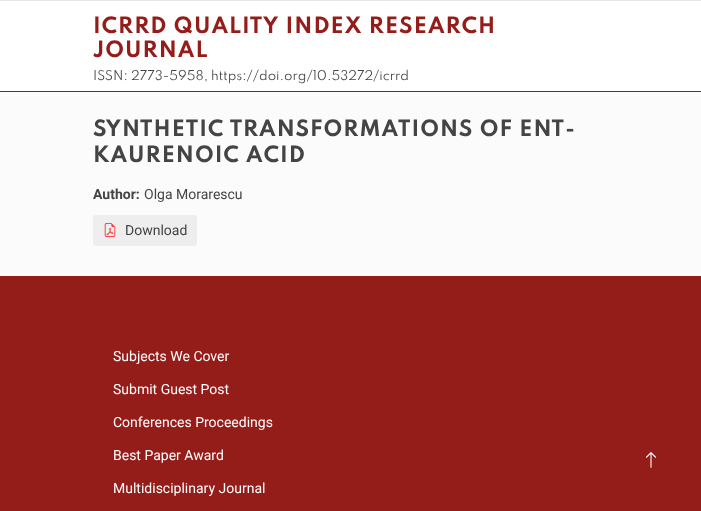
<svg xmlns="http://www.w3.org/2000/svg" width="701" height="511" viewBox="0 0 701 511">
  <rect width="100%" height="100%" fill="#fff"/>
  <path d="M0 91h701v1H0z" fill="#941d1a"/>
  <path d="M0 0h701v1H0z" fill="#e7e7e7"/>
  <path d="M0 92h701v184H0z" fill="#fbfbfb"/>
  <rect x="93" y="215" width="104" height="31" rx="3" fill="#eee"/>
  <image x="104" y="223" width="12" height="14" href="img/1.png"/>
  <path d="M0 276h701v235H0z" fill="#941d1a"/>
  <image x="646" y="452" width="10" height="16" href="img/2.png"/>
  <g font-family="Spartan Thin" font-size="20" font-weight="bold" letter-spacing="1" fill="#941d1a">
    <text x="93" y="33">ICRRD QUALITY INDEX RESEARCH</text>
    <text x="93" y="57">JOURNAL</text>
  </g>
  <text x="93" y="80" font-family="Spartan Thin" font-size="12" fill="#444">ISSN: 2773-5958, https://doi.org/10.53272/icrrd</text>
  <g font-family="Spartan Thin" font-size="20" font-weight="bold" letter-spacing="1" fill="#444">
    <text x="93" y="136">SYNTHETIC TRANSFORMATIONS OF ENT-</text>
    <text x="93" y="162">KAURENOIC ACID</text>
  </g>
  <text x="93" y="199" font-family="Roboto" font-size="14" font-weight="bold" fill="#444">Author:</text>
  <g font-family="Roboto" font-size="14" fill="#444">
    <text x="144" y="199">Olga Morarescu</text>
    <text x="125" y="235">Download</text>
  </g>
  <g font-family="Roboto" font-size="14" fill="#fff">
    <text x="113" y="361">Subjects We Cover</text>
    <text x="113" y="394">Submit Guest Post</text>
    <text x="113" y="427">Conferences Proceedings</text>
    <text x="113" y="460">Best Paper Award</text>
    <text x="113" y="493">Multidisciplinary Journal</text>
  </g>
</svg>
